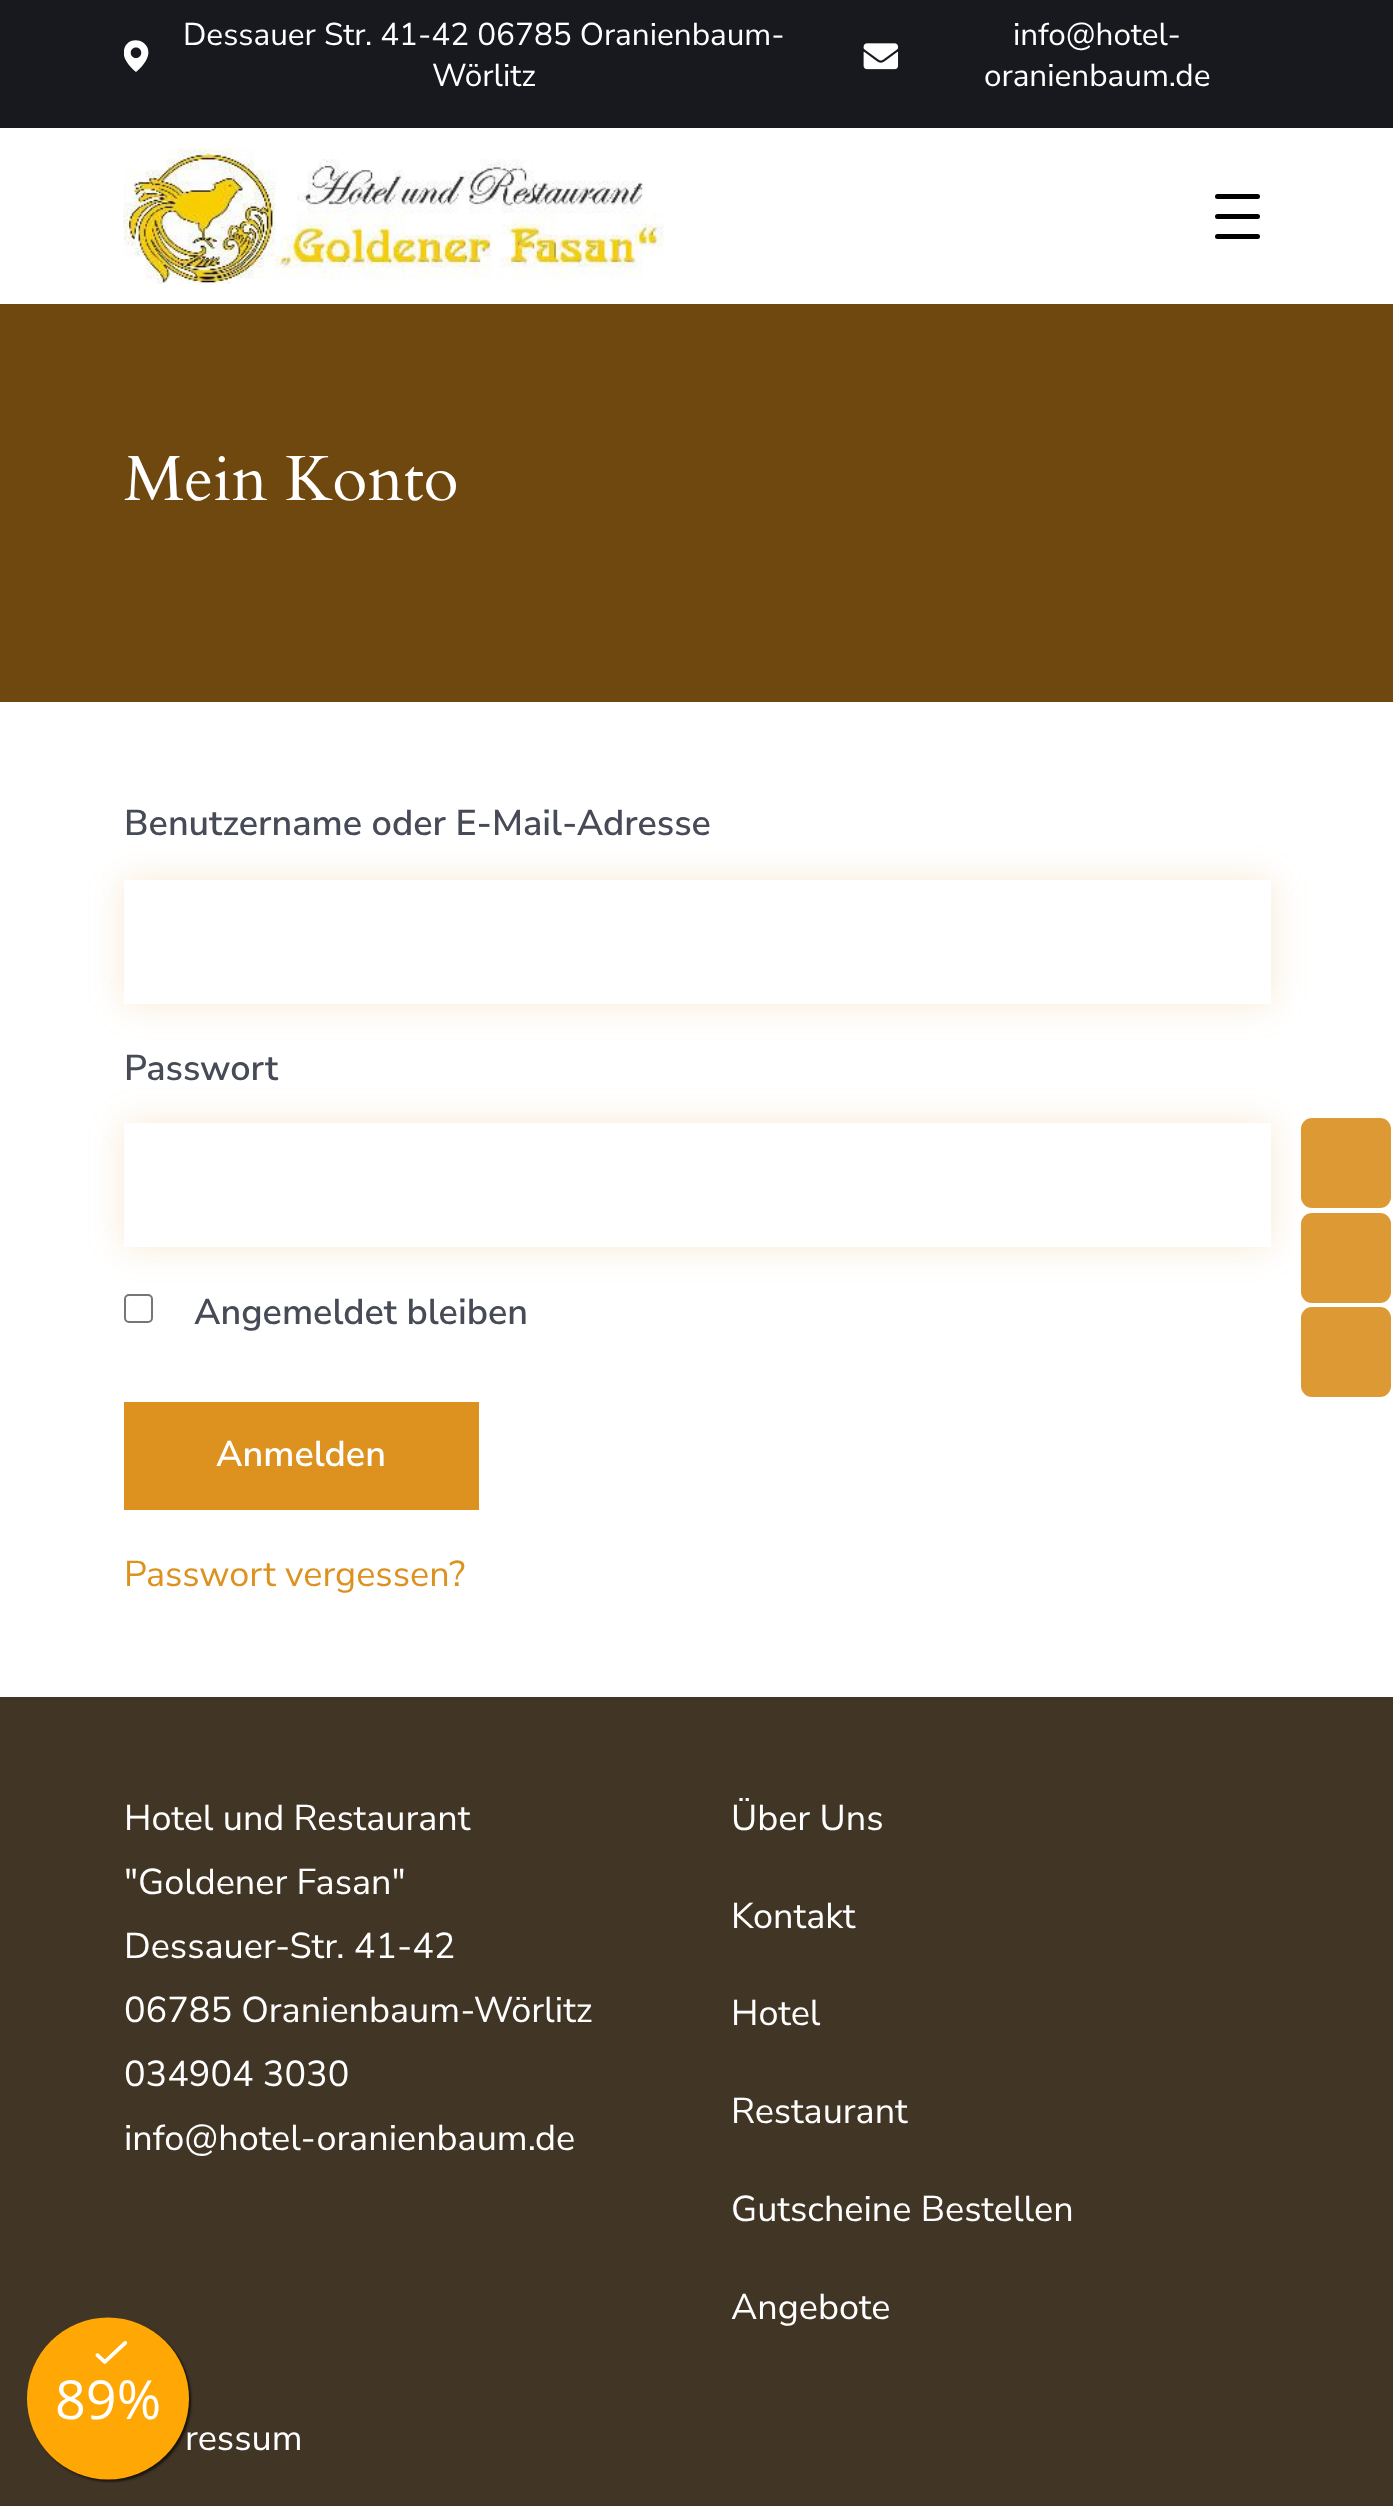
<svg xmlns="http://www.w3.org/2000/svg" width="1393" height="2506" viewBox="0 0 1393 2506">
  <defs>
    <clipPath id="clip1"><path d="M124 38h27v36H124z"/></clipPath>
  </defs>
  <rect width="100%" height="100%" fill="#fff"/>
  <path d="M0 0h1393v128H0z" fill="#18191f"/>
  <g clip-path="url(#clip1)">
    <path d="M136 72C130 67 122 58.5 124 50C128.5 29 168 45 136 72ZM136 47.5C129 47.5 129 58 136 58C143 58 143 47.5 136 47.5Z" fill="#fff"/>
  </g>
  <image x="863" y="43" width="36" height="27" href="img/1.png"/>
  <image x="123" y="148" width="541" height="136" href="img/2.png"/>
  <rect x="1215" y="194" width="45" height="5" rx="2.5" fill="#000"/>
  <rect x="1215" y="214" width="45" height="5" rx="2.5" fill="#000"/>
  <rect x="1215" y="234" width="45" height="5" rx="2.5" fill="#000"/>
  <path d="M0 304h1393v398H0z" fill="#6f4810"/>
  <path d="M124 880h1147v124H124z" fill="#dd911f33" filter="blur(17px)"/>
  <path d="M124 880h1147v124H124z" fill="#fff"/>
  <path d="M124 1123h1147v124H124z" fill="#dd911f33" filter="blur(17px)"/>
  <path d="M124 1123h1147v124H124z" fill="#fff"/>
  <rect x="125" y="1295" width="27" height="27" rx="4" fill="none" stroke="#767676" stroke-width="2"/>
  <path d="M124 1402h355v108H124z" fill="#dd911f"/>
  <rect x="1301" y="1118" width="90" height="90" rx="11" fill="#d93"/>
  <rect x="1301" y="1213" width="90" height="90" rx="11" fill="#d93"/>
  <rect x="1301" y="1307" width="90" height="90" rx="11" fill="#d93"/>
  <path d="M0 1697h1393v809H0z" fill="#413525"/>
  <g font-family="Nunito Sans" font-size="31.5" fill="#fff">
    <text x="183" y="45">Dessauer Str. 41-42 06785 Oranienbaum-</text>
    <text x="432" y="86">Wörlitz</text>
    <text x="1013" y="45">info@hotel-</text>
    <text x="984" y="86">oranienbaum.de</text>
  </g>
  <text x="124" y="500" font-family="Cardo" font-size="64" fill="#fff">Mein Konto</text>
  <g font-family="Nunito Sans" font-size="36" font-weight="600" fill="#474a57">
    <text x="124" y="835">Benutzername oder E-Mail-Adresse</text>
    <text x="124" y="1080">Passwort</text>
    <text x="194" y="1324">Angemeldet bleiben</text>
  </g>
  <text x="216" y="1466" font-family="Nunito Sans" font-size="36" font-weight="600" fill="#fff">Anmelden</text>
  <text x="124" y="1586" font-family="Nunito Sans" font-size="36" fill="#dd911f">Passwort vergessen?</text>
  <g font-family="Nunito Sans" font-size="36" fill="#fff">
    <text x="124" y="1830">Hotel und Restaurant</text>
    <text x="124" y="1894">"Goldener Fasan"</text>
    <text x="124" y="1958">Dessauer-Str. 41-42</text>
    <text x="124" y="2022">06785 Oranienbaum-Wörlitz</text>
    <text x="124" y="2086">034904 3030</text>
    <text x="124" y="2150">info@hotel-oranienbaum.de</text>
    <text x="731" y="1830">Über Uns</text>
    <text x="731" y="1928">Kontakt</text>
    <text x="731" y="2025">Hotel</text>
    <text x="731" y="2123">Restaurant</text>
    <text x="731" y="2221">Gutscheine Bestellen</text>
    <text x="731" y="2319">Angebote</text>
    <text x="185" y="2450">ressum</text>
  </g>
  <image x="26" y="2317" width="167" height="166" href="img/3.png"/>
</svg>
